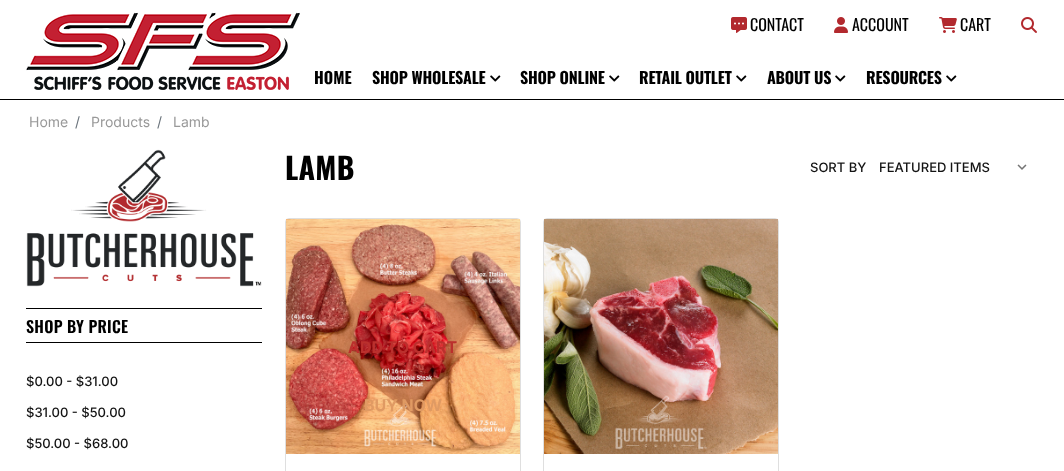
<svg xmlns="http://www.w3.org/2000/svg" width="1064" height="471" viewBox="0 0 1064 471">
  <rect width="100%" height="100%" fill="#fff"/>
  <path d="M0 99h1064v1H0z" fill="#000"/>
  <image x="731" y="17" width="16" height="16" href="img/1.png"/>
  <image x="834" y="17" width="14" height="16" href="img/2.png"/>
  <image x="939" y="17" width="18" height="16" href="img/3.png"/>
  <image x="1021" y="17" width="16" height="16" href="img/4.png"/>
  <image x="26" y="12" width="274" height="78" href="img/5.png"/>
  <image x="490" y="75" width="11" height="7" href="img/6.png"/>
  <image x="609" y="75" width="11" height="7" href="img/6.png"/>
  <image x="736" y="75" width="11" height="7" href="img/6.png"/>
  <image x="835" y="75" width="11" height="7" href="img/6.png"/>
  <image x="946" y="75" width="11" height="7" href="img/6.png"/>
  <image x="26" y="149" width="236" height="138" href="img/7.png"/>
  <path d="M26 308h236v1H26z" fill="#000"/>
  <path d="M26 342h236v1H26z" fill="#000"/>
  <image x="1017" y="164" width="10" height="6" href="img/8.png"/>
  <rect x="285.5" y="218.5" width="235" height="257" rx="3.5" fill="none" stroke="#dfdfdf"/>
  <image x="286" y="219" width="234" height="235" href="img/9.png"/>
  <rect x="543.5" y="218.5" width="235" height="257" rx="3.5" fill="none" stroke="#dfdfdf"/>
  <image x="544" y="219" width="234" height="235" href="img/10.png"/>
  <g font-family="Oswald" font-size="16" fill="#000">
    <text x="750" y="31">CONTACT</text>
    <text x="852" y="31">ACCOUNT</text>
    <text x="960" y="31">CART</text>
  </g>
  <text x="314" y="84" font-family="Oswald" font-size="16" font-weight="bold" fill="#000">HOME</text>
  <g font-family="Oswald" font-size="16" font-weight="bold" letter-spacing="-0.2" fill="#000">
    <text x="372" y="84">SHOP WHOLESALE</text>
    <text x="520" y="84">SHOP ONLINE</text>
    <text x="639" y="84">RETAIL OUTLET</text>
    <text x="767" y="84">ABOUT US</text>
    <text x="866" y="84">RESOURCES</text>
  </g>
  <text x="29" y="127" font-family="Inter" font-size="14" fill="#999">Home</text>
  <text x="75" y="127" font-family="Inter" font-size="14" fill="#6c757d">/</text>
  <text x="91" y="127" font-family="Inter" font-size="14" fill="#999">Products</text>
  <text x="157" y="127" font-family="Inter" font-size="14" fill="#6c757d">/</text>
  <text x="173" y="127" font-family="Inter" font-size="14" fill="#999">Lamb</text>
  <text x="26" y="333" font-family="Oswald" font-size="16" font-weight="600" letter-spacing="0.25" fill="#000">SHOP BY PRICE</text>
  <g font-family="Inter" font-size="13" font-weight="500" fill="#131313">
    <text x="26" y="386">$0.00 - $31.00</text>
    <text x="26" y="417">$31.00 - $50.00</text>
    <text x="26" y="448">$50.00 - $68.00</text>
  </g>
  <text x="285" y="180" font-family="Oswald" font-size="30" font-weight="bold" letter-spacing="0.25" fill="#000">LAMB</text>
  <g font-family="Inter" font-size="13" font-weight="500" fill="#131313">
    <text x="810" y="172">SORT BY</text>
    <text x="879" y="172">FEATURED ITEMS</text>
  </g>
  <text x="348" y="353" font-family="Inter" font-size="16" font-weight="bold" fill="#bb302d">ADD TO CART</text>
  <text x="364" y="411" font-family="Inter" font-size="16" font-weight="bold" fill="#e09a63">BUY NOW</text>
</svg>
